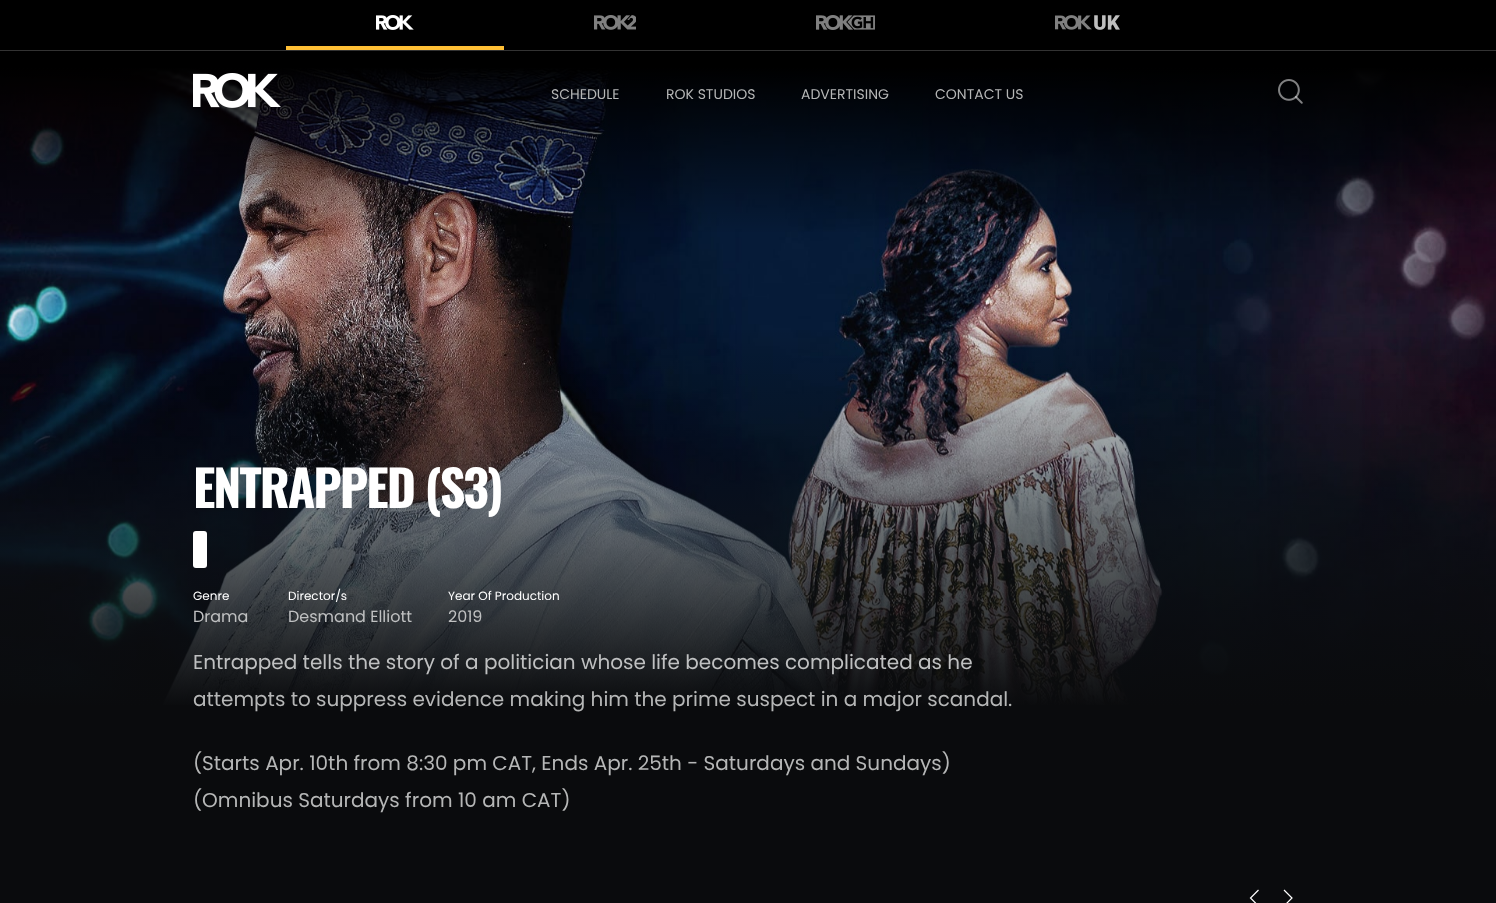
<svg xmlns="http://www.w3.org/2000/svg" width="1496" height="903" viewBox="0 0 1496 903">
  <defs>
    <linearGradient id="g1" gradientUnits="userSpaceOnUse" x1="748" y1="0" x2="748" y2="842"><stop offset="0.08" stop-color="#000"/><stop offset="0.28" stop-color="#000" stop-opacity="0"/></linearGradient>
    <linearGradient id="g2" gradientUnits="userSpaceOnUse" x1="748" y1="168" x2="748" y2="842"><stop offset="0.24" stop-color="#000" stop-opacity="0.02"/><stop offset="0.52" stop-color="#0f1010" stop-opacity="0.54"/><stop offset="0.8" stop-color="#0a0b0d"/></linearGradient>
  </defs>
  <rect width="100%" height="100%" fill="#0a0b0d"/>
  <image x="0" y="68" width="1496" height="637" href="img/7.png"/>
  <path d="M0 0h1496v232H0z" fill="url(#g1)"/>
  <path d="M0 50h1496v1H0z" fill="#333"/>
  <path d="M286 46h218v4H286z" fill="#ffbf35"/>
  <image x="376" y="15" width="38" height="15" href="img/1.png"/>
  <image x="594" y="15" width="42" height="15" href="img/2.png"/>
  <image x="816" y="15" width="59" height="15" href="img/3.png"/>
  <image x="1055" y="15" width="65" height="15" href="img/4.png"/>
  <image x="193" y="73" width="88" height="35" href="img/5.png"/>
  <image x="1278" y="79" width="25" height="25" href="img/6.png"/>
  <path d="M0 330h1496v375H0z" fill="url(#g2)"/>
  <rect x="193" y="531" width="14" height="37" rx="3" fill="#fff"/>
  <path d="M1258.5 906L1250.5 898L1258.5 890M1284 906L1292 898L1284 890" fill="none" stroke="#fff" stroke-width="1.2"/>
  <g font-family="Poppins" font-size="14" fill="#b6b7b7">
    <text x="551" y="99">SCHEDULE</text>
    <text x="666" y="99">ROK STUDIOS</text>
    <text x="801" y="99">ADVERTISING</text>
    <text x="935" y="99">CONTACT US</text>
  </g>
  <text x="193" y="508" font-family="Oswald" font-size="50" font-weight="bold" letter-spacing="-2" fill="#fff">ENTRAPPED (S3)</text>
  <text x="193" y="600" font-family="Poppins" font-size="12" fill="#fff">Genre</text>
  <text x="193" y="622" font-family="Poppins" font-size="16" fill="#bfc0c1">Drama</text>
  <text x="288" y="600" font-family="Poppins" font-size="12" fill="#fff">Director/s</text>
  <text x="288" y="622" font-family="Poppins" font-size="16" fill="#bfc0c1">Desmand Elliott</text>
  <text x="448" y="600" font-family="Poppins" font-size="12" fill="#fff">Year Of Production</text>
  <text x="448" y="622" font-family="Poppins" font-size="16" fill="#bfc0c1">2019</text>
  <text x="193" y="669" font-family="Poppins" font-size="20" fill="#bfc0c1">Entrapped tells the story of a politician whose life becomes complicated as he</text>
  <g font-family="Poppins" font-size="20" fill="#b6b7b7">
    <text x="193" y="706">attempts to suppress evidence making him the prime suspect in a major scandal.</text>
    <text x="193" y="770">(Starts Apr. 10th from 8:30 pm CAT, Ends Apr. 25th - Saturdays and Sundays)</text>
    <text x="193" y="807">(Omnibus Saturdays from 10 am CAT)</text>
  </g>
</svg>
